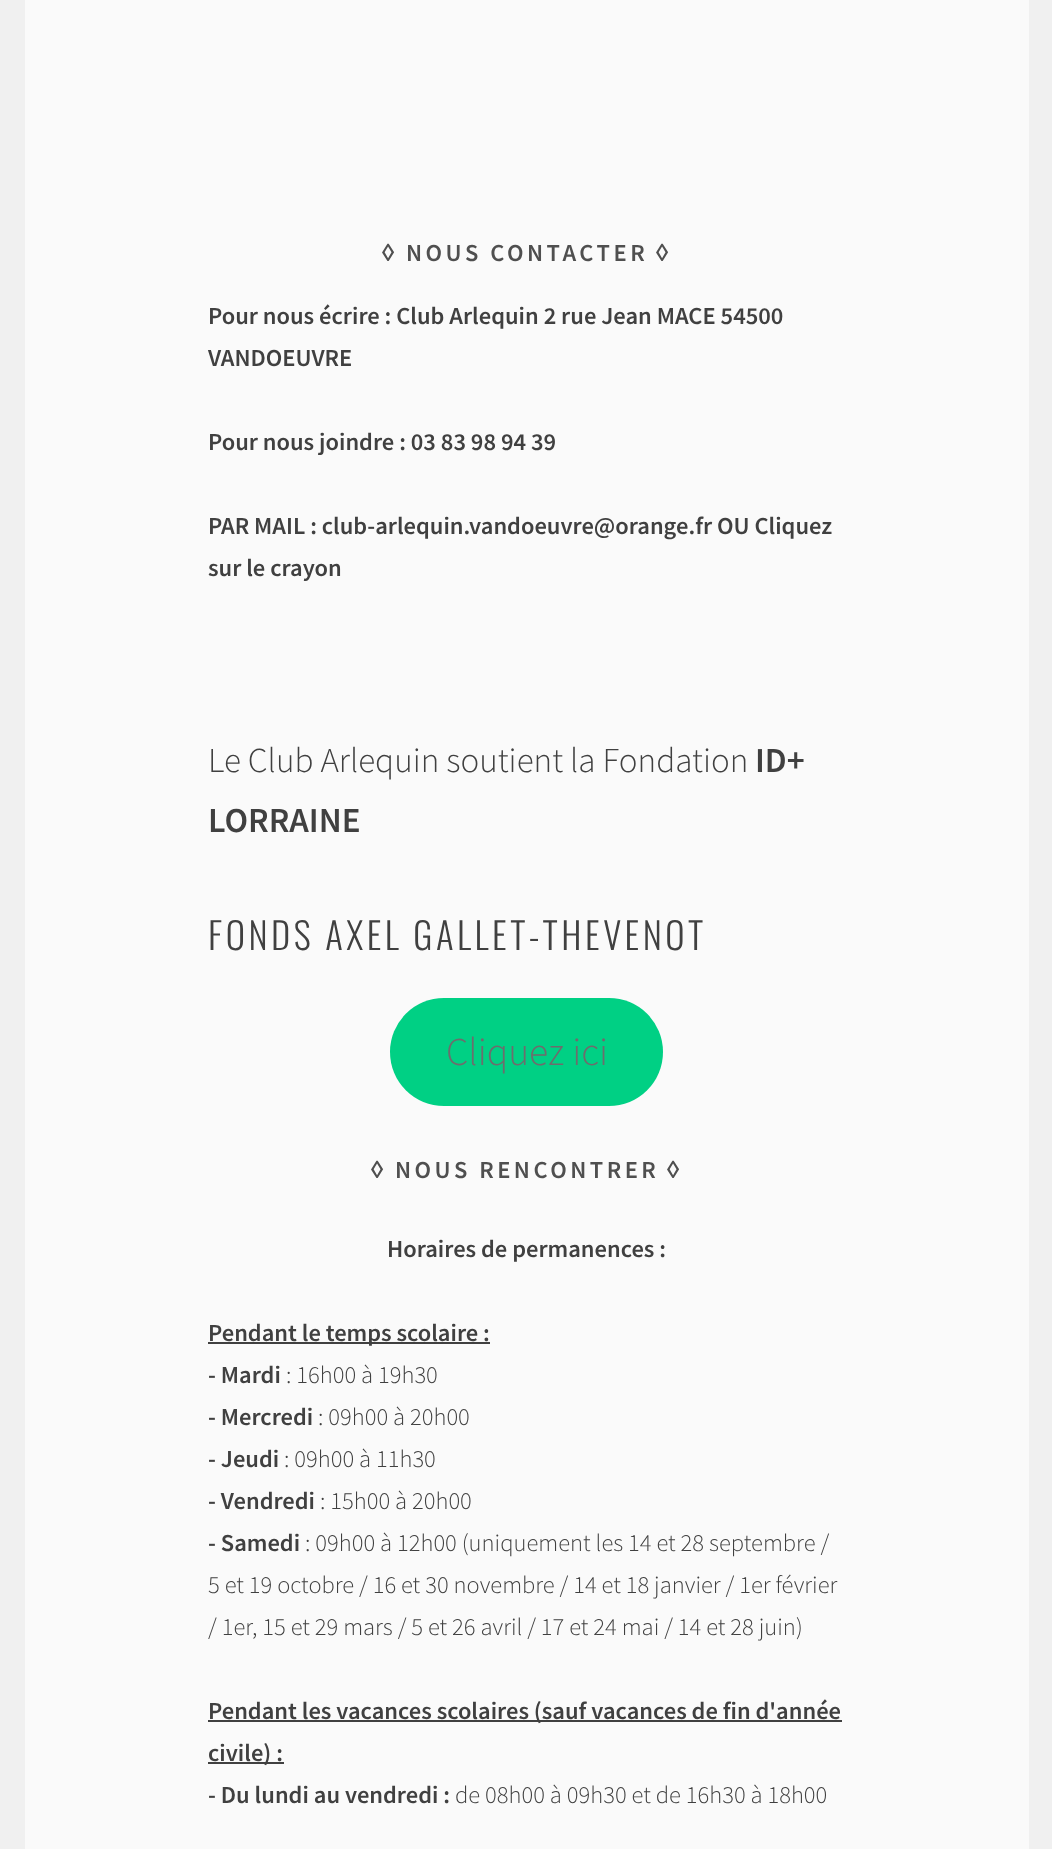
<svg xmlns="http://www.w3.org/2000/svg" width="1052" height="1849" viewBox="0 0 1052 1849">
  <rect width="100%" height="100%" fill="#f0f0f0"/>
  <path d="M25 0h1004v1849H25z" fill="#fafafa"/>
  <rect x="390" y="998" width="273" height="108" rx="54" fill="#00d084"/>
  <path d="M208 1342h282v2H208z" fill="#404040"/>
  <path d="M208 1720h634v2H208z" fill="#404040"/>
  <path d="M208 1762h76v2H208z" fill="#404040"/>
  <text x="382" y="261" font-family="Liberation Sans" font-size="24.5" font-weight="bold" letter-spacing="3.5" fill="#4f4f4f">◊</text>
  <text x="406" y="261" font-family="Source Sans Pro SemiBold" font-size="24.5" font-weight="600" letter-spacing="3.5" fill="#4f4f4f">NOUS CONTACTER</text>
  <text x="656" y="261" font-family="Liberation Sans" font-size="24.5" font-weight="bold" letter-spacing="3.5" fill="#4f4f4f">◊</text>
  <g font-family="Source Sans Pro SemiBold" font-size="24.5" font-weight="600" fill="#404040">
    <text x="208" y="324">Pour nous écrire : Club Arlequin 2 rue Jean MACE 54500</text>
    <text x="208" y="366">VANDOEUVRE</text>
    <text x="208" y="450">Pour nous joindre : 03 83 98 94 39</text>
    <text x="208" y="534">PAR MAIL : club-arlequin.vandoeuvre@orange.fr OU Cliquez</text>
    <text x="208" y="576">sur le crayon</text>
  </g>
  <text x="208" y="772" font-family="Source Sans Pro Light" font-size="35" font-weight="300" fill="#404040">Le Club Arlequin soutient la Fondation</text>
  <g font-family="Source Sans Pro SemiBold" font-size="35" font-weight="600" fill="#404040">
    <text x="755" y="772">ID+</text>
    <text x="208" y="832">LORRAINE</text>
  </g>
  <text x="208" y="950" font-family="Oswald" font-size="36.75" font-weight="300" letter-spacing="3.5" fill="#404040">FONDS AXEL GALLET-THEVENOT</text>
  <text x="446" y="1065" font-family="Source Sans Pro Light" font-size="39.5" font-weight="300" fill="#6d6d6d">Cliquez ici</text>
  <text x="371" y="1178" font-family="Liberation Sans" font-size="24.5" font-weight="bold" letter-spacing="3.5" fill="#4f4f4f">◊</text>
  <text x="395" y="1178" font-family="Source Sans Pro SemiBold" font-size="24.5" font-weight="600" letter-spacing="3.5" fill="#4f4f4f">NOUS RENCONTRER</text>
  <text x="667" y="1178" font-family="Liberation Sans" font-size="24.5" font-weight="bold" letter-spacing="3.5" fill="#4f4f4f">◊</text>
  <g font-family="Source Sans Pro SemiBold" font-size="24.5" font-weight="600" fill="#404040">
    <text x="387" y="1257">Horaires de permanences :</text>
    <text x="208" y="1341">Pendant le temps scolaire :</text>
    <text x="208" y="1383">- Mardi</text>
  </g>
  <text x="286" y="1383" font-family="Source Sans Pro Light" font-size="24.5" font-weight="300" fill="#404040">: 16h00 à 19h30</text>
  <text x="208" y="1425" font-family="Source Sans Pro SemiBold" font-size="24.5" font-weight="600" fill="#404040">- Mercredi</text>
  <text x="318" y="1425" font-family="Source Sans Pro Light" font-size="24.5" font-weight="300" fill="#404040">: 09h00 à 20h00</text>
  <text x="208" y="1467" font-family="Source Sans Pro SemiBold" font-size="24.5" font-weight="600" fill="#404040">- Jeudi</text>
  <text x="284" y="1467" font-family="Source Sans Pro Light" font-size="24.5" font-weight="300" fill="#404040">: 09h00 à 11h30</text>
  <text x="208" y="1509" font-family="Source Sans Pro SemiBold" font-size="24.5" font-weight="600" fill="#404040">- Vendredi</text>
  <text x="320" y="1509" font-family="Source Sans Pro Light" font-size="24.5" font-weight="300" fill="#404040">: 15h00 à 20h00</text>
  <text x="208" y="1551" font-family="Source Sans Pro SemiBold" font-size="24.5" font-weight="600" fill="#404040">- Samedi</text>
  <g font-family="Source Sans Pro Light" font-size="24.5" font-weight="300" fill="#404040">
    <text x="305" y="1551">: 09h00 à 12h00 (uniquement les 14 et 28 septembre /</text>
    <text x="208" y="1593">5 et 19 octobre / 16 et 30 novembre / 14 et 18 janvier / 1er février</text>
    <text x="208" y="1635">/ 1er, 15 et 29 mars / 5 et 26 avril / 17 et 24 mai / 14 et 28 juin)</text>
  </g>
  <g font-family="Source Sans Pro SemiBold" font-size="24.5" font-weight="600" fill="#404040">
    <text x="208" y="1719">Pendant les vacances scolaires (sauf vacances de fin d'année</text>
    <text x="208" y="1761">civile) :</text>
    <text x="208" y="1803">- Du lundi au vendredi :</text>
  </g>
  <text x="455" y="1803" font-family="Source Sans Pro Light" font-size="24.5" font-weight="300" fill="#404040">de 08h00 à 09h30 et de 16h30 à 18h00</text>
</svg>
